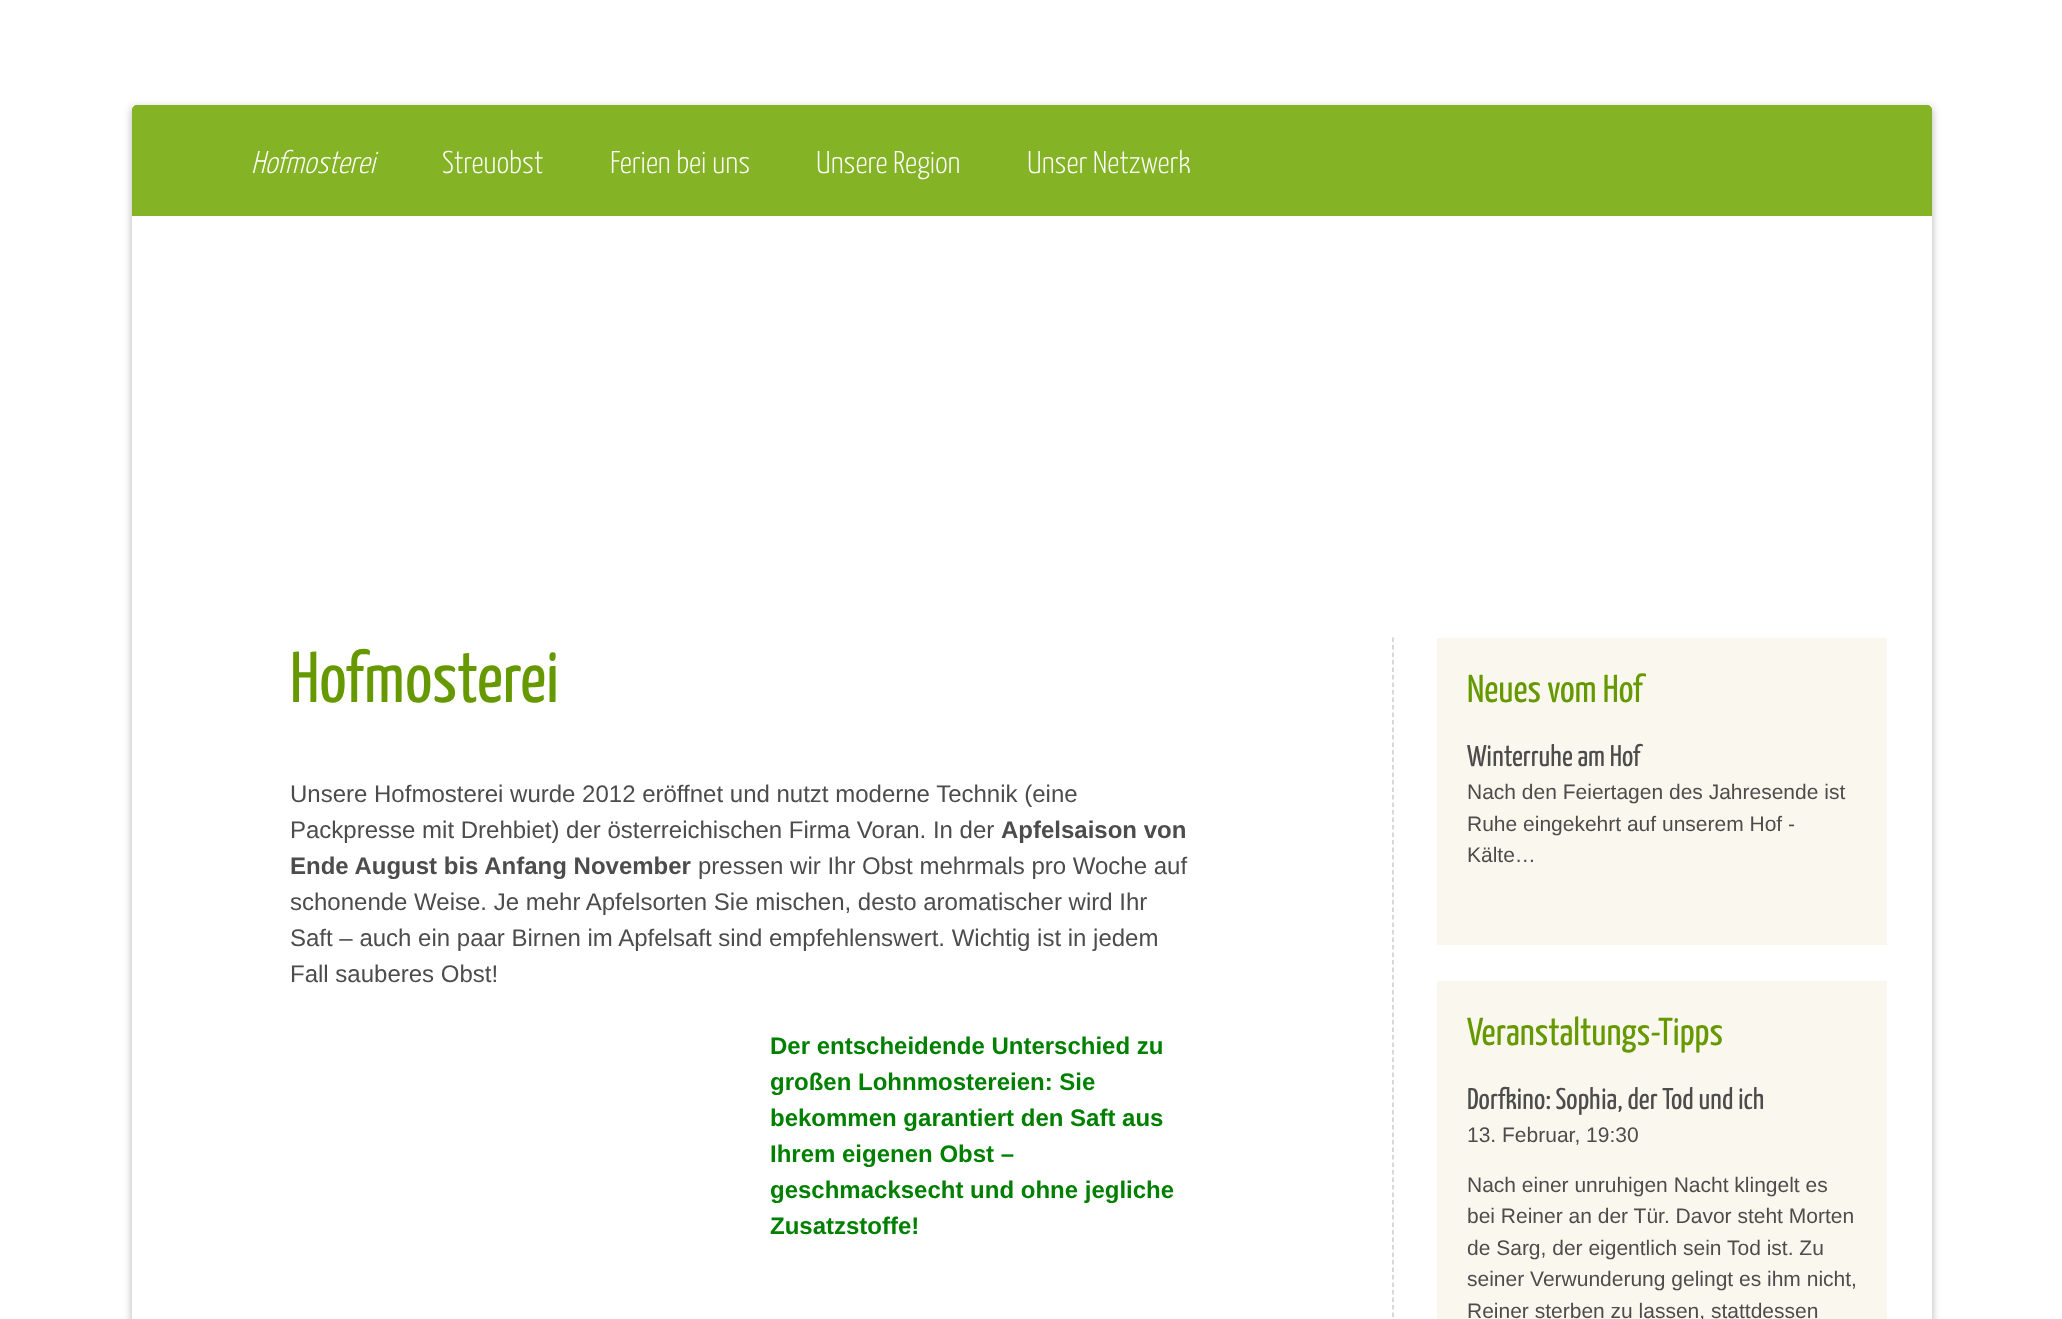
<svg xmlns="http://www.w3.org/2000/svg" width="2062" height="1319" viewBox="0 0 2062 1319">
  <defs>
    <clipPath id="clip1"><path d="M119 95H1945V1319H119ZM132 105H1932V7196H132Z" clip-rule="evenodd"/></clipPath>
  </defs>
  <rect width="100%" height="100%" fill="#fff"/>
  <g clip-path="url(#clip1)">
    <path d="M132 108h1800v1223H132z" fill="#0000004d" filter="blur(4px)"/>
  </g>
  <path d="M137 105H1927C1930 105 1932 107 1932 110V216H132V110C132 107 134 105 137 105Z" fill="#84b326"/>
  <path d="M1393 637.5V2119.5" fill="none" stroke="#ccc" stroke-width="1.5" stroke-dasharray="4.5 3"/>
  <path d="M1437 638h450v307H1437z" fill="#faf8ee"/>
  <path d="M1437 981h450v338H1437z" fill="#faf8ee"/>
  <text x="251" y="173" font-family="Yanone Kaffeesatz" font-size="31.5" font-weight="300" font-style="italic" fill="#fff">Hofmosterei</text>
  <g font-family="Yanone Kaffeesatz" font-size="31.5" font-weight="300" fill="#fff">
    <text x="442" y="173">Streuobst</text>
    <text x="610" y="173">Ferien bei uns</text>
    <text x="816" y="173">Unsere Region</text>
    <text x="1027" y="173">Unser Netzwerk</text>
  </g>
  <text x="290" y="702" font-family="Yanone Kaffeesatz" font-size="72" fill="#690">Hofmosterei</text>
  <g font-family="Liberation Sans" font-size="24" fill="#4c4c4c">
    <text x="290" y="802">Unsere Hofmosterei wurde 2012 eröffnet und nutzt moderne Technik (eine</text>
    <text x="290" y="838">Packpresse mit Drehbiet) der österreichischen Firma Voran. In der</text>
  </g>
  <g font-family="Liberation Sans" font-size="24" font-weight="bold" fill="#4c4c4c">
    <text x="1001" y="838">Apfelsaison von</text>
    <text x="290" y="874">Ende August bis Anfang November</text>
  </g>
  <g font-family="Liberation Sans" font-size="24" fill="#4c4c4c">
    <text x="698" y="874">pressen wir Ihr Obst mehrmals pro Woche auf</text>
    <text x="290" y="910">schonende Weise. Je mehr Apfelsorten Sie mischen, desto aromatischer wird Ihr</text>
    <text x="290" y="946">Saft – auch ein paar Birnen im Apfelsaft sind empfehlenswert. Wichtig ist in jedem</text>
    <text x="290" y="982">Fall sauberes Obst!</text>
  </g>
  <g font-family="Liberation Sans" font-size="24" font-weight="bold" fill="#008000">
    <text x="770" y="1054">Der entscheidende Unterschied zu</text>
    <text x="770" y="1090">großen Lohnmostereien: Sie</text>
    <text x="770" y="1126">bekommen garantiert den Saft aus</text>
    <text x="770" y="1162">Ihrem eigenen Obst –</text>
    <text x="770" y="1198">geschmacksecht und ohne jegliche</text>
    <text x="770" y="1234">Zusatzstoffe!</text>
  </g>
  <text x="1467" y="702" font-family="Yanone Kaffeesatz" font-size="39" fill="#690">Neues vom Hof</text>
  <text x="1467" y="766" font-family="Yanone Kaffeesatz" font-size="30" fill="#4c4c4c">Winterruhe am Hof</text>
  <g font-family="Liberation Sans" font-size="21" fill="#4c4c4c">
    <text x="1467" y="799">Nach den Feiertagen des Jahresende ist</text>
    <text x="1467" y="831">Ruhe eingekehrt auf unserem Hof -</text>
    <text x="1467" y="862">Kälte…</text>
  </g>
  <text x="1467" y="1045" font-family="Yanone Kaffeesatz" font-size="39" fill="#690">Veranstaltungs-Tipps</text>
  <text x="1467" y="1109" font-family="Yanone Kaffeesatz" font-size="30" fill="#4c4c4c">Dorfkino: Sophia, der Tod und ich</text>
  <g font-family="Liberation Sans" font-size="21" fill="#4c4c4c">
    <text x="1467" y="1142">13. Februar, 19:30</text>
    <text x="1467" y="1192">Nach einer unruhigen Nacht klingelt es</text>
    <text x="1467" y="1223">bei Reiner an der Tür. Davor steht Morten</text>
    <text x="1467" y="1255">de Sarg, der eigentlich sein Tod ist. Zu</text>
    <text x="1467" y="1286">seiner Verwunderung gelingt es ihm nicht,</text>
    <text x="1467" y="1318">Reiner sterben zu lassen, stattdessen</text>
  </g>
</svg>
